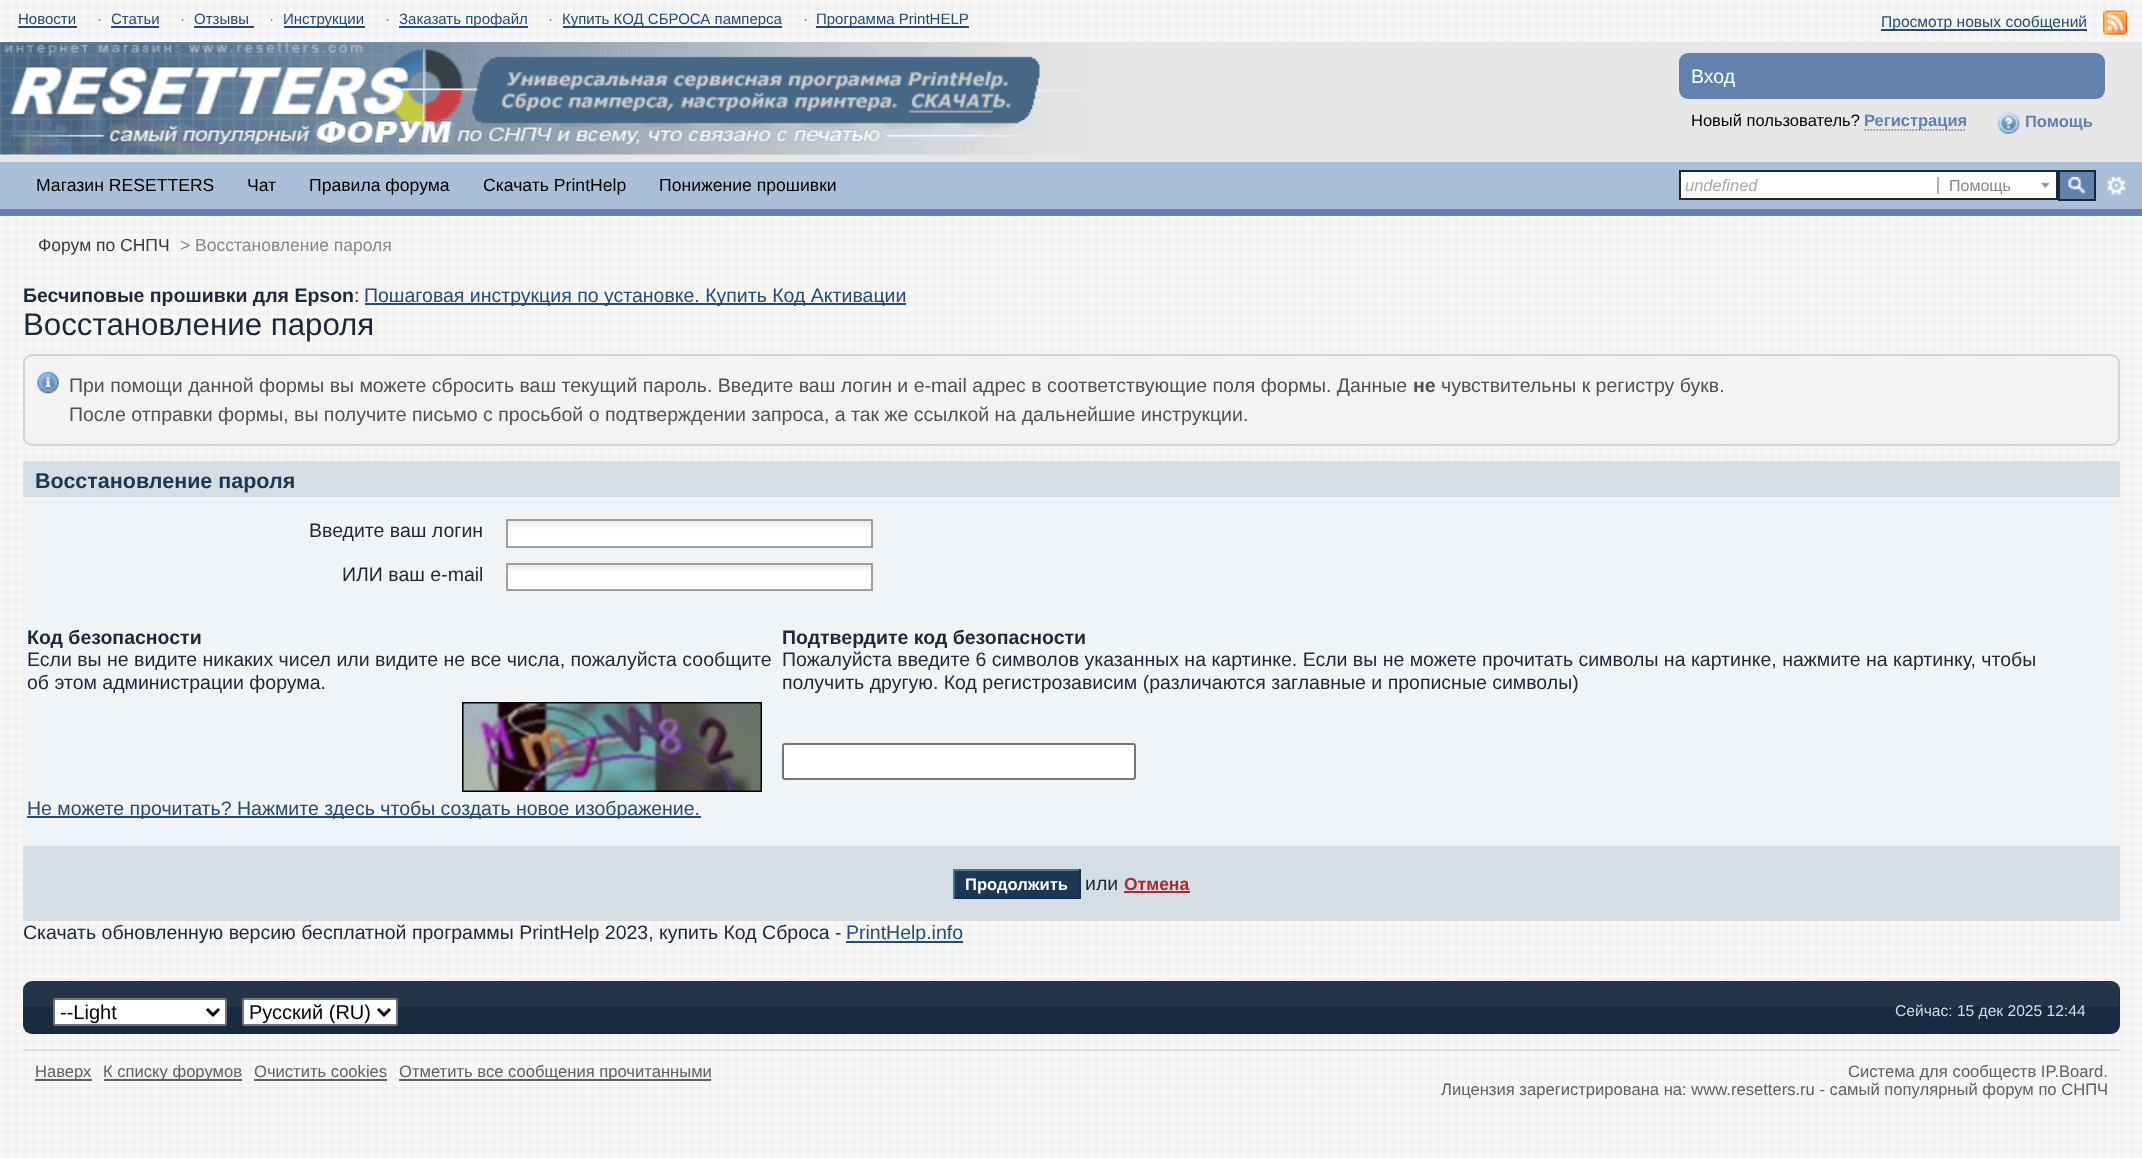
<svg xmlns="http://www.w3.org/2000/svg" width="2142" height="1158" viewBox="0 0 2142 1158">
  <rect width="100%" height="100%" fill="#fff"/>
  <image x="0" y="0" width="2142" height="1158" href="img/1.png"/>
  <path d="M18 26h59v2H18z" fill="#284b72"/>
  <path d="M111 26h48v2H111z" fill="#284b72"/>
  <path d="M194 26h60v2H194z" fill="#284b72"/>
  <path d="M284 26h81v2H284z" fill="#284b72"/>
  <path d="M399 26h129v2H399z" fill="#284b72"/>
  <path d="M563 26h219v2H563z" fill="#284b72"/>
  <path d="M816 26h153v2H816z" fill="#284b72"/>
  <path d="M1881 29h206v2H1881z" fill="#284b72"/>
  <image x="2103" y="10" width="24" height="25" href="img/2.png"/>
  <path d="M0 42h2142v120H0z" fill="#e7e7e7"/>
  <image x="0" y="42" width="1087" height="113" href="img/3.png"/>
  <rect x="1679" y="53" width="426" height="46" rx="9" fill="#6282ad"/>
  <path d="M1864.5 130H1966.5" fill="none" stroke="#6282ad" stroke-width="1.5" stroke-dasharray="1.5 1.5"/>
  <image x="1997" y="112" width="23" height="22" href="img/4.png"/>
  <path d="M0 162h2142v47H0z" fill="#acbfd9"/>
  <path d="M0 209h2142v7H0z" fill="#6282ad"/>
  <path d="M1680 171h377v28H1680z" fill="#fff" stroke="#1a2735" stroke-width="2"/>
  <image x="2041" y="182" width="9" height="6" href="img/5.png"/>
  <path d="M1937 177h2v17H1937z" fill="#afafaf"/>
  <path d="M2060 172h34v27H2060z" fill="#6282ad"/>
  <image x="2068" y="177" width="17" height="17" href="img/6.png"/>
  <path d="M2059 171h36v29H2059z" fill="none" stroke="#1a2735" stroke-width="2"/>
  <image x="2107" y="176" width="19" height="20" href="img/7.png"/>
  <path d="M365 303h541v2H365z" fill="#284b72"/>
  <rect x="23" y="354" width="2097" height="92" rx="9" fill="#f3f3f3"/>
  <image x="37" y="371" width="22" height="23" href="img/8.png"/>
  <rect x="24" y="355" width="2095" height="90" rx="8" fill="none" stroke="#d4d4d4" stroke-width="2"/>
  <path d="M23 497h2097v349H23z" fill="#f1f4f7"/>
  <path d="M23 461h2097v36H23z" fill="#d5dde5"/>
  <image x="505" y="520" width="366" height="27" href="img/9.png"/>
  <path d="M507 520h365v27H507z" fill="none" stroke="#9f9f9f" stroke-width="2"/>
  <image x="505" y="564" width="366" height="27" href="img/10.png"/>
  <path d="M507 564h365v26H507z" fill="none" stroke="#9f9f9f" stroke-width="2"/>
  <rect x="783" y="744" width="352" height="35" rx="2" fill="#fff" stroke="#767676" stroke-width="2"/>
  <image x="462" y="702" width="300" height="90" href="img/11.png"/>
  <path d="M27 816h674v2H27z" fill="#284b72"/>
  <path d="M23 846h2097v75H23z" fill="#d5dde5"/>
  <path d="M955 871h124v26H955z" fill="#1d3652"/>
  <path d="M953 869h127v2H953z" fill="#4f7298"/>
  <path d="M1079 869h2v30H1079z" fill="#113051"/>
  <path d="M953 897h127v2H953z" fill="#113051"/>
  <path d="M953 869h2v30H953z" fill="#4f7298"/>
  <path d="M1124 891h66v2H1124z" fill="#ad2930"/>
  <path d="M846 941h117v2H846z" fill="#284b72"/>
  <rect x="23" y="981" width="2097" height="53" rx="9" fill="#192b40"/>
  <image x="23" y="981" width="2096" height="26" href="img/12.png"/>
  <rect x="54" y="999" width="172" height="26" rx="2" fill="#fff" stroke="#767676" stroke-width="2"/>
  <path d="M207 1009L213 1015L219 1009" fill="none" stroke="#000" stroke-width="3"/>
  <rect x="243" y="999" width="154" height="26" rx="2" fill="#fff" stroke="#767676" stroke-width="2"/>
  <path d="M378 1009L384 1015L390 1009" fill="none" stroke="#000" stroke-width="3"/>
  <path d="M23 1049h2097v2H23z" fill="#dedede"/>
  <path d="M35 1079h57v2H35z" fill="#606060"/>
  <path d="M104 1079h138v2H104z" fill="#606060"/>
  <path d="M254 1079h133v2H254z" fill="#606060"/>
  <path d="M399 1079h312v2H399z" fill="#606060"/>
  <text x="18" y="24" font-family="Liberation Sans" font-size="15" fill="#284b72">Новости</text>
  <text x="97" y="24" font-family="Liberation Sans" font-size="15.6" fill="#767676">·</text>
  <text x="111" y="24" font-family="Liberation Sans" font-size="15" fill="#284b72">Статьи</text>
  <text x="180" y="24" font-family="Liberation Sans" font-size="15.6" fill="#767676">·</text>
  <text x="194" y="24" font-family="Liberation Sans" font-size="15" fill="#284b72">Отзывы</text>
  <text x="269" y="24" font-family="Liberation Sans" font-size="15.6" fill="#767676">·</text>
  <text x="283" y="24" font-family="Liberation Sans" font-size="15" fill="#284b72">Инструкции</text>
  <text x="385" y="24" font-family="Liberation Sans" font-size="15.6" fill="#767676">·</text>
  <text x="399" y="24" font-family="Liberation Sans" font-size="15" fill="#284b72">Заказать профайл</text>
  <text x="548" y="24" font-family="Liberation Sans" font-size="15.6" fill="#767676">·</text>
  <text x="562" y="24" font-family="Liberation Sans" font-size="15" fill="#284b72">Купить КОД СБРОСА памперса</text>
  <text x="803" y="24" font-family="Liberation Sans" font-size="15.6" fill="#767676">·</text>
  <text x="816" y="24" font-family="Liberation Sans" font-size="15" fill="#284b72">Программа PrintHELP</text>
  <text x="1881" y="27" font-family="Liberation Sans" font-size="15.6" fill="#284b72">Просмотр новых сообщений</text>
  <text x="1691" y="83" font-family="Liberation Sans" font-size="19.5" fill="#fff">Вход</text>
  <text x="1691" y="126" font-family="Liberation Sans" font-size="16.5" fill="#000">Новый пользователь?</text>
  <g font-family="Liberation Sans" font-size="16.5" font-weight="bold" fill="#6282ad">
    <text x="1864" y="126">Регистрация</text>
    <text x="2025" y="127">Помощь</text>
  </g>
  <g font-family="Liberation Sans" font-size="17.6" fill="#000">
    <text x="36" y="191">Магазин RESETTERS</text>
    <text x="247" y="191">Чат</text>
    <text x="309" y="191">Правила форума</text>
    <text x="483" y="191">Скачать PrintHelp</text>
    <text x="659" y="191">Понижение прошивки</text>
  </g>
  <text x="1685" y="191" font-family="Liberation Sans" font-size="16.5" font-style="italic" fill="#a9a9a9">undefined</text>
  <text x="1949" y="191" font-family="Liberation Sans" font-size="16" fill="#878787">Помощь</text>
  <text x="38" y="251" font-family="Liberation Sans" font-size="17.5" fill="#393939">Форум по СНПЧ</text>
  <text x="180" y="251" font-family="Liberation Sans" font-size="17.5" fill="#878787">&gt; Восстановление пароля</text>
  <text x="23" y="302" font-family="Liberation Sans" font-size="19.5" font-weight="bold" fill="#1c2837">Бесчиповые прошивки для Epson</text>
  <text x="354" y="302" font-family="Liberation Sans" font-size="19.5" fill="#1c2837">:</text>
  <text x="364" y="302" font-family="Liberation Sans" font-size="19.5" fill="#284b72">Пошаговая инструкция по установке. Купить Код Активации</text>
  <text x="23" y="335" font-family="Liberation Sans" font-size="31.25" fill="#1c2837">Восстановление пароля</text>
  <text x="69" y="392" font-family="Liberation Sans" font-size="19.5" fill="#515151">При помощи данной формы вы можете сбросить ваш текущий пароль. Введите ваш логин и e-mail адрес в соответствующие поля формы. Данные</text>
  <text x="1413" y="392" font-family="Liberation Sans" font-size="19.5" font-weight="bold" fill="#515151">не</text>
  <g font-family="Liberation Sans" font-size="19.5" fill="#515151">
    <text x="1441" y="392">чувствительны к регистру букв.</text>
    <text x="69" y="421">После отправки формы, вы получите письмо с просьбой о подтверждении запроса, а так же ссылкой на дальнейшие инструкции.</text>
  </g>
  <text x="35" y="488" font-family="Liberation Sans" font-size="21.5" font-weight="bold" fill="#1d3652">Восстановление пароля</text>
  <g font-family="Liberation Sans" font-size="19.5" fill="#1c2837">
    <text x="309" y="537">Введите ваш логин</text>
    <text x="342" y="581">ИЛИ ваш e-mail</text>
  </g>
  <text x="27" y="644" font-family="Liberation Sans" font-size="19.5" font-weight="bold" fill="#1c2837">Код безопасности</text>
  <g font-family="Liberation Sans" font-size="19.5" fill="#1c2837">
    <text x="27" y="666">Если вы не видите никаких чисел или видите не все числа, пожалуйста сообщите</text>
    <text x="27" y="689">об этом администрации форума.</text>
  </g>
  <text x="782" y="644" font-family="Liberation Sans" font-size="19.5" font-weight="bold" fill="#1c2837">Подтвердите код безопасности</text>
  <g font-family="Liberation Sans" font-size="19.5" fill="#1c2837">
    <text x="782" y="666">Пожалуйста введите 6 символов указанных на картинке. Если вы не можете прочитать символы на картинке, нажмите на картинку, чтобы</text>
    <text x="782" y="689">получить другую. Код регистрозависим (различаются заглавные и прописные символы)</text>
  </g>
  <text x="27" y="815" font-family="Liberation Sans" font-size="19.5" fill="#284b72">Не можете прочитать? Нажмите здесь чтобы создать новое изображение.</text>
  <text x="965" y="890" font-family="Liberation Sans" font-size="16.6" font-weight="bold" fill="#fff">Продолжить</text>
  <text x="1085" y="890" font-family="Liberation Sans" font-size="19.5" fill="#1c2837">или</text>
  <text x="1124" y="890" font-family="Liberation Sans" font-size="17.5" font-weight="bold" fill="#ad2930">Отмена</text>
  <text x="23" y="939" font-family="Liberation Sans" font-size="19.5" fill="#1c2837">Скачать обновленную версию бесплатной программы PrintHelp 2023, купить Код Сброса -</text>
  <text x="846" y="939" font-family="Liberation Sans" font-size="19.5" fill="#284b72">PrintHelp.info</text>
  <g font-family="Liberation Sans" font-size="20" fill="#000">
    <text x="60" y="1019">--Light</text>
    <text x="249" y="1019">Русский (RU)</text>
  </g>
  <text x="1895" y="1016" font-family="Liberation Sans" font-size="15.6" fill="#d5dde5">Сейчас: 15 дек 2025 12:44</text>
  <g font-family="Liberation Sans" font-size="16.6" fill="#606060">
    <text x="35" y="1077">Наверх</text>
    <text x="103" y="1077">К списку форумов</text>
    <text x="254" y="1077">Очистить cookies</text>
    <text x="399" y="1077">Отметить все сообщения прочитанными</text>
    <text x="1848" y="1077">Система для сообществ IP.Board.</text>
    <text x="1441" y="1095">Лицензия зарегистрирована на: www.resetters.ru - самый популярный форум по СНПЧ</text>
  </g>
</svg>
